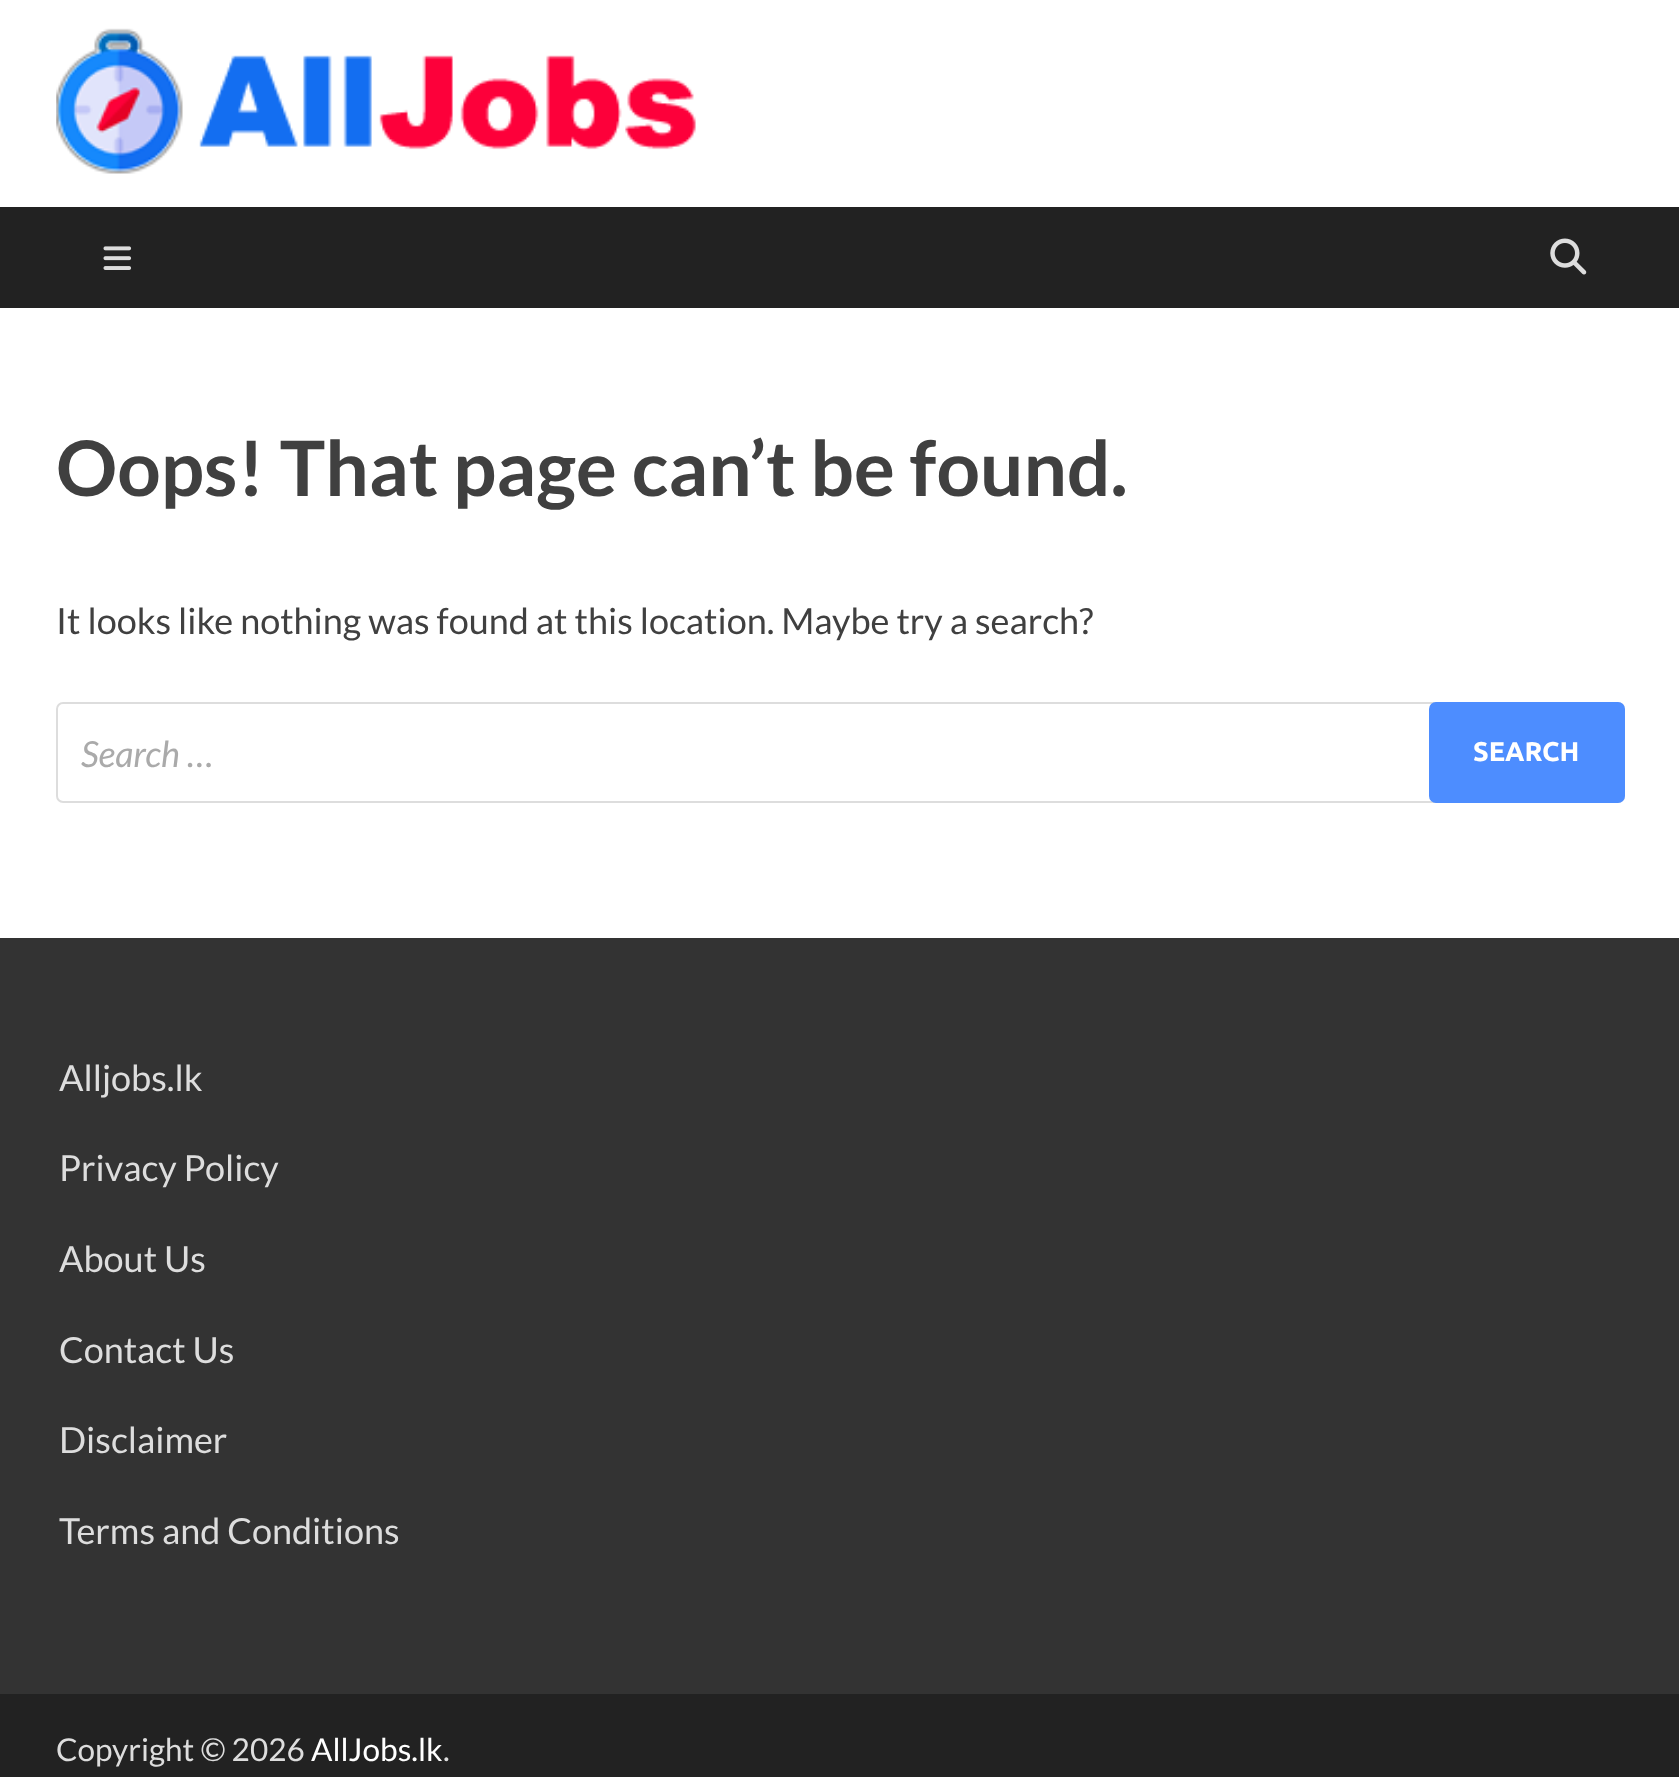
<svg xmlns="http://www.w3.org/2000/svg" width="1679" height="1777" viewBox="0 0 1679 1777">
  <rect width="100%" height="100%" fill="#fff"/>
  <image x="56" y="28" width="640" height="146" href="img/1.png"/>
  <path d="M0 207h1679v101H0z" fill="#222"/>
  <image x="103" y="246" width="29" height="24" href="img/2.png"/>
  <image x="1550" y="238" width="37" height="37" href="img/3.png"/>
  <rect x="57" y="703" width="1567" height="99" rx="6" fill="none" stroke="#ddd" stroke-width="2"/>
  <rect x="1429" y="702" width="196" height="101" rx="7" fill="#4d8dff"/>
  <path d="M0 938h1679v756H0z" fill="#333"/>
  <path d="M0 1694h1679v83H0z" fill="#222"/>
  <text x="56" y="496" font-family="Lato" font-size="76.5" font-weight="bold" fill="#404040">Oops! That page can’t be found.</text>
  <text x="56" y="634" font-family="Lato" font-size="36" fill="#404040">It looks like nothing was found at this location. Maybe try a search?</text>
  <text x="81" y="767" font-family="Lato" font-size="36" font-style="italic" fill="#aaa">Search …</text>
  <text x="1473" y="761" font-family="Ubuntu" font-size="27" font-weight="bold" fill="#fff">SEARCH</text>
  <g font-family="Lato" font-size="36" fill="#ddd">
    <text x="59" y="1091">Alljobs.lk</text>
    <text x="59" y="1181">Privacy Policy</text>
    <text x="59" y="1272">About Us</text>
    <text x="59" y="1363">Contact Us</text>
    <text x="59" y="1453">Disclaimer</text>
    <text x="59" y="1544">Terms and Conditions</text>
  </g>
  <text x="56" y="1761" font-family="Lato" font-size="31.5" fill="#ddd">Copyright © 2026</text>
  <text x="311" y="1761" font-family="Lato" font-size="31.5" fill="#fff">AllJobs.lk</text>
  <text x="443" y="1761" font-family="Lato" font-size="31.5" fill="#ddd">.</text>
</svg>
